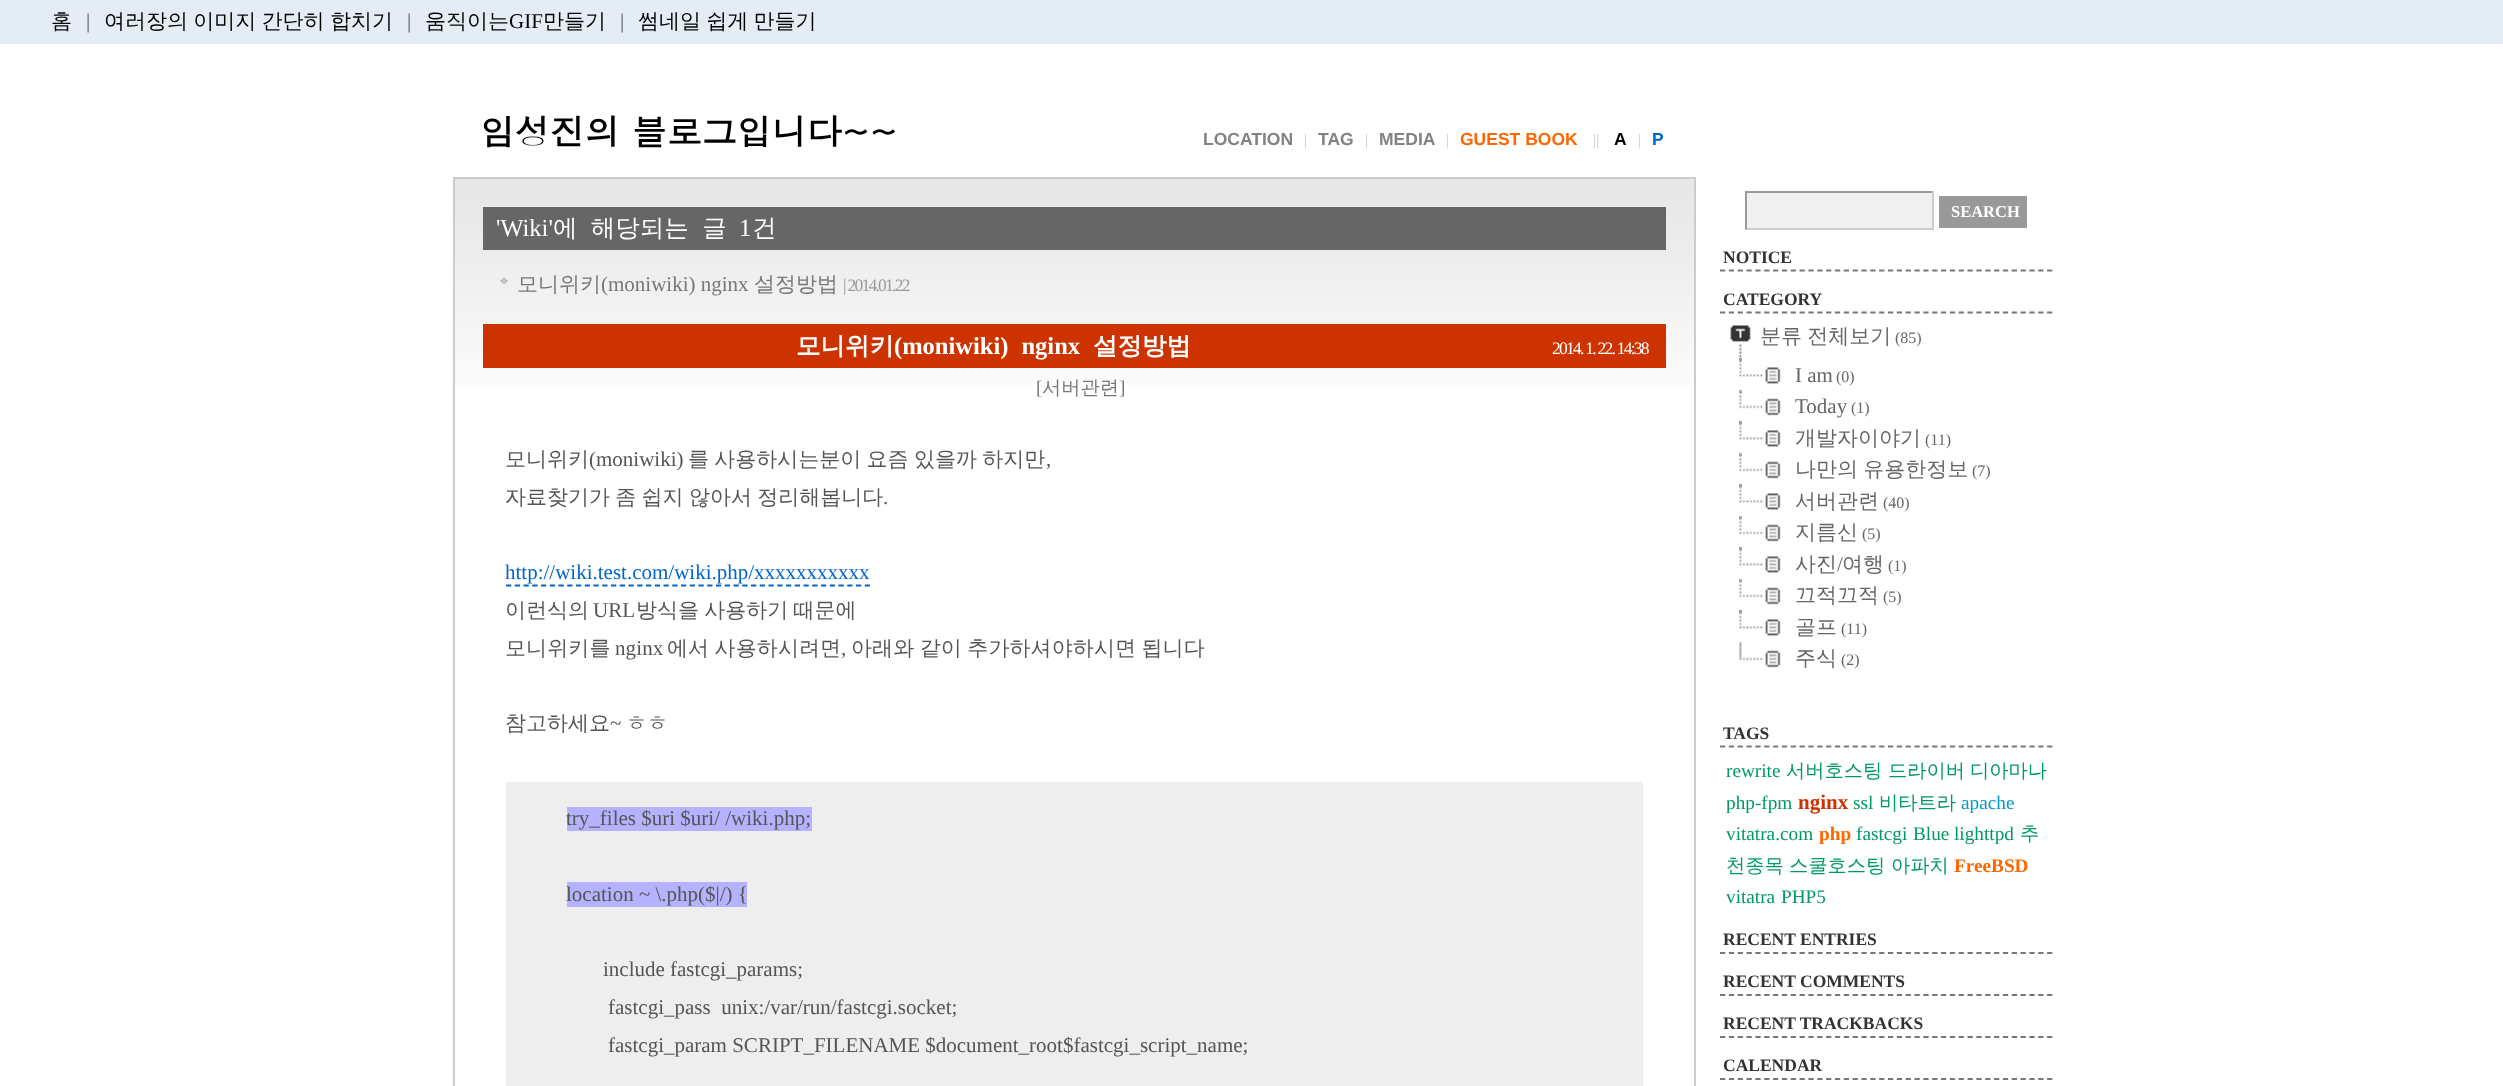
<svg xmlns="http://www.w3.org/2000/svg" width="2503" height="1086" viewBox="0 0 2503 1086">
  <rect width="100%" height="100%" fill="#fff"/>
  <path d="M0 0h2503v44H0z" fill="#e4edf6"/>
  <image x="455" y="179" width="1239" height="206" href="img/1.png"/>
  <path d="M454 178h1241v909H454z" fill="none" stroke="#ccc" stroke-width="2"/>
  <path d="M483 207h1183v43H483z" fill="#666"/>
  <image x="500" y="278" width="8" height="6" href="img/2.png"/>
  <path d="M483 324h1183v44H483z" fill="#c30"/>
  <path d="M506 585.5H870" fill="none" stroke="#06c" stroke-width="1.8" stroke-dasharray="5.25 3.5"/>
  <path d="M506 782h1137v304H506z" fill="#eee"/>
  <path d="M567 807h245v24H567z" fill="#b5b2ff"/>
  <path d="M567 882h180v25H567z" fill="#b5b2ff"/>
  <path d="M1747 193h185v35H1747z" fill="#f0f0f0"/>
  <path d="M1745 191h189v2H1745z" fill="#999"/>
  <path d="M1932 191h2v38H1932z" fill="#ccc"/>
  <path d="M1745 228h189v2H1745z" fill="#ccc"/>
  <path d="M1745 191h2v38H1745z" fill="#999"/>
  <path d="M1939 196h88v32H1939z" fill="#999"/>
  <path d="M1720 270.5H2053" fill="none" stroke="#777" stroke-width="1.8" stroke-dasharray="5.25 3.59"/>
  <path d="M1720 312.5H2053" fill="none" stroke="#777" stroke-width="1.8" stroke-dasharray="5.25 3.59"/>
  <image x="1730" y="325" width="21" height="33" href="img/3.png"/>
  <path d="M1739 358h3v3H1739z" fill="#9f9f9f"/>
  <image x="1739" y="361" width="42" height="23" href="img/4.png"/>
  <path d="M1739 390h3v3H1739z" fill="#b1b1b1"/>
  <image x="1739" y="392" width="42" height="24" href="img/5.png"/>
  <path d="M1739 421h3v3H1739z" fill="#9f9f9f"/>
  <image x="1739" y="424" width="42" height="23" href="img/4.png"/>
  <path d="M1739 453h3v3H1739z" fill="#b1b1b1"/>
  <image x="1739" y="455" width="42" height="24" href="img/5.png"/>
  <path d="M1739 484h3v3H1739z" fill="#9f9f9f"/>
  <image x="1739" y="487" width="42" height="23" href="img/4.png"/>
  <path d="M1739 516h3v3H1739z" fill="#b1b1b1"/>
  <image x="1739" y="518" width="42" height="24" href="img/5.png"/>
  <path d="M1739 547h3v3H1739z" fill="#9f9f9f"/>
  <image x="1739" y="550" width="42" height="23" href="img/4.png"/>
  <path d="M1739 579h3v3H1739z" fill="#b1b1b1"/>
  <image x="1739" y="581" width="42" height="24" href="img/5.png"/>
  <path d="M1739 610h3v3H1739z" fill="#9f9f9f"/>
  <image x="1739" y="613" width="42" height="23" href="img/4.png"/>
  <image x="1739" y="642" width="3" height="17" href="img/6.png"/>
  <image x="1739" y="644" width="42" height="24" href="img/7.png"/>
  <path d="M1720 746.5H2053" fill="none" stroke="#777" stroke-width="1.8" stroke-dasharray="5.25 3.59"/>
  <path d="M1720 953H2053" fill="none" stroke="#777" stroke-width="1.8" stroke-dasharray="5.25 3.59"/>
  <path d="M1720 995H2053" fill="none" stroke="#777" stroke-width="1.8" stroke-dasharray="5.25 3.59"/>
  <path d="M1720 1037H2053" fill="none" stroke="#777" stroke-width="1.8" stroke-dasharray="5.25 3.59"/>
  <path d="M1720 1079H2053" fill="none" stroke="#777" stroke-width="1.8" stroke-dasharray="5.25 3.59"/>
  <text x="51" y="28" font-family="WenQuanYi Zen Hei" font-size="21" font-weight="500" fill="#000">홈</text>
  <text x="86" y="28" font-family="Liberation Serif" font-size="21" fill="#555">|</text>
  <text x="104" y="28" word-spacing="-1" font-family="WenQuanYi Zen Hei" font-size="21" font-weight="500" fill="#000">여러장의 이미지 간단히 합치기</text>
  <text x="407" y="28" font-family="Liberation Serif" font-size="21" fill="#555">|</text>
  <text x="425" y="28" font-family="WenQuanYi Zen Hei" font-size="21" font-weight="500" fill="#000">움직이는</text>
  <text x="509" y="28" font-family="Liberation Serif" font-size="21" fill="#000">GIF</text>
  <text x="543" y="28" font-family="WenQuanYi Zen Hei" font-size="21" font-weight="500" fill="#000">만들기</text>
  <text x="620" y="28" font-family="Liberation Serif" font-size="21" fill="#555">|</text>
  <text x="638" y="28" word-spacing="-1" font-family="WenQuanYi Zen Hei" font-size="21" font-weight="500" fill="#000">썸네일 쉽게 만들기</text>
  <text x="480" y="145" font-family="Dotum" font-size="35" font-weight="bold" fill="#000">임성진의 블로그입니다~~</text>
  <text x="1203" y="145" font-family="Liberation Sans" font-size="17.5" font-weight="bold" fill="#828282">LOCATION</text>
  <text x="1304" y="145" font-family="Liberation Serif" font-size="16" fill="#ccc">|</text>
  <text x="1318" y="145" font-family="Liberation Sans" font-size="17.5" font-weight="bold" fill="#828282">TAG</text>
  <text x="1365" y="145" font-family="Liberation Serif" font-size="16" fill="#ccc">|</text>
  <text x="1379" y="145" font-family="Liberation Sans" font-size="17.5" font-weight="bold" fill="#828282">MEDIA</text>
  <text x="1446" y="145" font-family="Liberation Serif" font-size="16" fill="#ccc">|</text>
  <text x="1460" y="145" font-family="Liberation Sans" font-size="17.5" font-weight="bold" fill="#f60">GUEST BOOK</text>
  <text x="1593" y="145" font-family="Liberation Serif" font-size="16" fill="#ccc">||</text>
  <text x="1614" y="145" font-family="Liberation Sans" font-size="17.5" font-weight="bold" fill="#000">A</text>
  <text x="1638" y="145" font-family="Liberation Serif" font-size="16" fill="#ccc">|</text>
  <text x="1652" y="145" font-family="Liberation Sans" font-size="17.5" font-weight="bold" fill="#06c">P</text>
  <text x="496" y="236" font-family="Liberation Serif" font-size="24.5" fill="#fff">'Wiki'</text>
  <text x="553" y="236" word-spacing="6" font-family="WenQuanYi Zen Hei" font-size="24.5" font-weight="500" fill="#fff">에 해당되는 글</text>
  <text x="739" y="236" font-family="Liberation Serif" font-size="24.5" fill="#fff">1</text>
  <text x="752" y="236" font-family="WenQuanYi Zen Hei" font-size="24.5" font-weight="500" fill="#fff">건</text>
  <text x="517" y="291" font-family="WenQuanYi Zen Hei" font-size="21" font-weight="500" fill="#777">모니위키</text>
  <text x="601" y="291" font-family="Liberation Serif" font-size="21" fill="#777">(moniwiki) nginx</text>
  <text x="754" y="291" font-family="WenQuanYi Zen Hei" font-size="21" font-weight="500" fill="#777">설정방법</text>
  <text x="843" y="291" font-family="Liberation Serif" font-size="17.5" letter-spacing="-1.75" fill="#999">| 2014.01.22</text>
  <text x="796" y="354" font-family="WenQuanYi Zen Hei" font-size="24.5" font-weight="bold" fill="#fff">모니위키</text>
  <text x="894" y="354" word-spacing="7" font-family="Liberation Serif" font-size="24.5" font-weight="bold" fill="#fff">(moniwiki) nginx</text>
  <text x="1093" y="354" font-family="WenQuanYi Zen Hei" font-size="24.5" font-weight="bold" fill="#fff">설정방법</text>
  <text x="1552" y="354" font-family="Liberation Serif" font-size="17.5" letter-spacing="-1.75" fill="#fff">2014. 1. 22. 14:38</text>
  <text x="1036" y="394" font-family="Liberation Serif" font-size="19.25" fill="#777">[</text>
  <text x="1042" y="394" font-family="WenQuanYi Zen Hei" font-size="19.25" font-weight="500" fill="#777">서버관련</text>
  <text x="1119" y="394" font-family="Liberation Serif" font-size="19.25" fill="#777">]</text>
  <text x="505" y="466" font-family="WenQuanYi Zen Hei" font-size="21" font-weight="500" fill="#555">모니위키</text>
  <text x="589" y="466" font-family="Liberation Serif" font-size="21" fill="#555">(moniwiki)</text>
  <text x="688" y="466" word-spacing="-1" font-family="WenQuanYi Zen Hei" font-size="21" font-weight="500" fill="#555">를 사용하시는분이 요즘 있을까 하지만</text>
  <text x="1046" y="466" font-family="Liberation Serif" font-size="21" fill="#555">,</text>
  <text x="505" y="504" word-spacing="-1" font-family="WenQuanYi Zen Hei" font-size="21" font-weight="500" fill="#555">자료찾기가 좀 쉽지 않아서 정리해봅니다</text>
  <text x="883" y="504" font-family="Liberation Serif" font-size="21" fill="#555">.</text>
  <text x="505" y="579" font-family="Liberation Serif" font-size="21" fill="#06c">http://wiki.test.com/wiki.php/xxxxxxxxxxx</text>
  <text x="505" y="617" font-family="WenQuanYi Zen Hei" font-size="21" font-weight="500" fill="#555">이런식의</text>
  <text x="593" y="617" font-family="Liberation Serif" font-size="21" fill="#555">URL</text>
  <text x="636" y="617" word-spacing="-1" font-family="WenQuanYi Zen Hei" font-size="21" font-weight="500" fill="#555">방식을 사용하기 때문에</text>
  <text x="505" y="655" font-family="WenQuanYi Zen Hei" font-size="21" font-weight="500" letter-spacing="0.1" fill="#555">모니위키를</text>
  <text x="615" y="655" font-family="Liberation Serif" font-size="21" letter-spacing="0.1" fill="#555">nginx</text>
  <text x="667" y="655" word-spacing="-1" font-family="WenQuanYi Zen Hei" font-size="21" font-weight="500" letter-spacing="0.1" fill="#555">에서 사용하시려면</text>
  <text x="841" y="655" font-family="Liberation Serif" font-size="21" letter-spacing="0.1" fill="#555">,</text>
  <text x="851" y="655" word-spacing="-1" font-family="WenQuanYi Zen Hei" font-size="21" font-weight="500" letter-spacing="0.1" fill="#555">아래와 같이 추가하셔야하시면 됩니다</text>
  <text x="505" y="730" font-family="WenQuanYi Zen Hei" font-size="21" font-weight="500" fill="#555">참고하세요</text>
  <text x="610" y="730" font-family="Liberation Serif" font-size="21" fill="#555">~</text>
  <text x="626" y="730" font-family="WenQuanYi Zen Hei" font-size="21" font-weight="500" fill="#555">ㅎㅎ</text>
  <g font-family="Liberation Serif" font-size="21" fill="#555">
    <text x="566" y="825">try_files $uri $uri/ /wiki.php;</text>
    <text x="566" y="901">location ~ \.php($|/) {</text>
    <text x="603" y="976">include fastcgi_params;</text>
    <text x="608" y="1014" xml:space="preserve">fastcgi_pass  unix:/var/run/fastcgi.socket;</text>
    <text x="608" y="1052">fastcgi_param SCRIPT_FILENAME $document_root$fastcgi_script_name;</text>
  </g>
  <text x="1951" y="217" font-family="Liberation Serif" font-size="16.5" font-weight="bold" fill="#fff">SEARCH</text>
  <g font-family="Liberation Serif" font-size="17.5" font-weight="bold" fill="#333">
    <text x="1723" y="263">NOTICE</text>
    <text x="1723" y="305">CATEGORY</text>
  </g>
  <text x="1760" y="343" word-spacing="-1" font-family="WenQuanYi Zen Hei" font-size="21" font-weight="500" fill="#666">분류 전체보기</text>
  <text x="1895" y="343" font-family="Liberation Serif" font-size="16" fill="#666">(85)</text>
  <text x="1795" y="382" font-family="Liberation Serif" font-size="21" fill="#666">I am</text>
  <text x="1836" y="382" font-family="Liberation Serif" font-size="16" fill="#666">(0)</text>
  <text x="1795" y="413" font-family="Liberation Serif" font-size="21" fill="#666">Today</text>
  <text x="1851" y="413" font-family="Liberation Serif" font-size="16" fill="#666">(1)</text>
  <text x="1795" y="445" font-family="WenQuanYi Zen Hei" font-size="21" font-weight="500" fill="#666">개발자이야기</text>
  <text x="1925" y="445" font-family="Liberation Serif" font-size="16" fill="#666">(11)</text>
  <text x="1795" y="476" word-spacing="-1" font-family="WenQuanYi Zen Hei" font-size="21" font-weight="500" fill="#666">나만의 유용한정보</text>
  <text x="1972" y="476" font-family="Liberation Serif" font-size="16" fill="#666">(7)</text>
  <text x="1795" y="508" font-family="WenQuanYi Zen Hei" font-size="21" font-weight="500" fill="#666">서버관련</text>
  <text x="1883" y="508" font-family="Liberation Serif" font-size="16" fill="#666">(40)</text>
  <text x="1795" y="539" font-family="WenQuanYi Zen Hei" font-size="21" font-weight="500" fill="#666">지름신</text>
  <text x="1862" y="539" font-family="Liberation Serif" font-size="16" fill="#666">(5)</text>
  <text x="1795" y="571" font-family="WenQuanYi Zen Hei" font-size="21" font-weight="500" fill="#666">사진</text>
  <text x="1837" y="571" font-family="Liberation Serif" font-size="21" fill="#666">/</text>
  <text x="1842" y="571" font-family="WenQuanYi Zen Hei" font-size="21" font-weight="500" fill="#666">여행</text>
  <text x="1888" y="571" font-family="Liberation Serif" font-size="16" fill="#666">(1)</text>
  <text x="1795" y="602" font-family="WenQuanYi Zen Hei" font-size="21" font-weight="500" fill="#666">끄적끄적</text>
  <text x="1883" y="602" font-family="Liberation Serif" font-size="16" fill="#666">(5)</text>
  <text x="1795" y="634" font-family="WenQuanYi Zen Hei" font-size="21" font-weight="500" fill="#666">골프</text>
  <text x="1841" y="634" font-family="Liberation Serif" font-size="16" fill="#666">(11)</text>
  <text x="1795" y="665" font-family="WenQuanYi Zen Hei" font-size="21" font-weight="500" fill="#666">주식</text>
  <text x="1841" y="665" font-family="Liberation Serif" font-size="16" fill="#666">(2)</text>
  <text x="1723" y="739" font-family="Liberation Serif" font-size="17.5" font-weight="bold" fill="#333">TAGS</text>
  <text x="1726" y="777" font-family="Liberation Serif" font-size="19.25" fill="#096">rewrite</text>
  <g font-family="WenQuanYi Zen Hei" font-size="19.25" font-weight="500" fill="#096">
    <text x="1786" y="777">서버호스팅</text>
    <text x="1888" y="777">드라이버</text>
    <text x="1970" y="777">디아마나</text>
  </g>
  <text x="1726" y="809" font-family="Liberation Serif" font-size="19.25" fill="#096">php-fpm</text>
  <text x="1798" y="809" font-family="Liberation Serif" font-size="21" font-weight="bold" fill="#c30">nginx</text>
  <text x="1853" y="809" font-family="Liberation Serif" font-size="19.25" fill="#096">ssl</text>
  <text x="1879" y="809" font-family="WenQuanYi Zen Hei" font-size="19.25" font-weight="500" fill="#096">비타트라</text>
  <text x="1961" y="809" font-family="Liberation Serif" font-size="19.25" fill="#09c">apache</text>
  <text x="1726" y="840" font-family="Liberation Serif" font-size="19.25" fill="#096">vitatra.com</text>
  <text x="1819" y="840" font-family="Liberation Serif" font-size="19.25" font-weight="bold" fill="#f60">php</text>
  <g font-family="Liberation Serif" font-size="19.25" fill="#096">
    <text x="1856" y="840">fastcgi</text>
    <text x="1913" y="840">Blue</text>
    <text x="1954" y="840">lighttpd</text>
  </g>
  <g font-family="WenQuanYi Zen Hei" font-size="19.25" font-weight="500" fill="#096">
    <text x="2020" y="840">추</text>
    <text x="1726" y="872">천종목</text>
    <text x="1789" y="872">스쿨호스팅</text>
    <text x="1891" y="872">아파치</text>
  </g>
  <text x="1954" y="872" font-family="Liberation Serif" font-size="19.25" font-weight="bold" fill="#f60">FreeBSD</text>
  <g font-family="Liberation Serif" font-size="19.25" fill="#096">
    <text x="1726" y="903">vitatra</text>
    <text x="1781" y="903">PHP5</text>
  </g>
  <g font-family="Liberation Serif" font-size="17.5" font-weight="bold" fill="#333">
    <text x="1723" y="945">RECENT ENTRIES</text>
    <text x="1723" y="987">RECENT COMMENTS</text>
    <text x="1723" y="1029">RECENT TRACKBACKS</text>
    <text x="1723" y="1071">CALENDAR</text>
  </g>
</svg>
